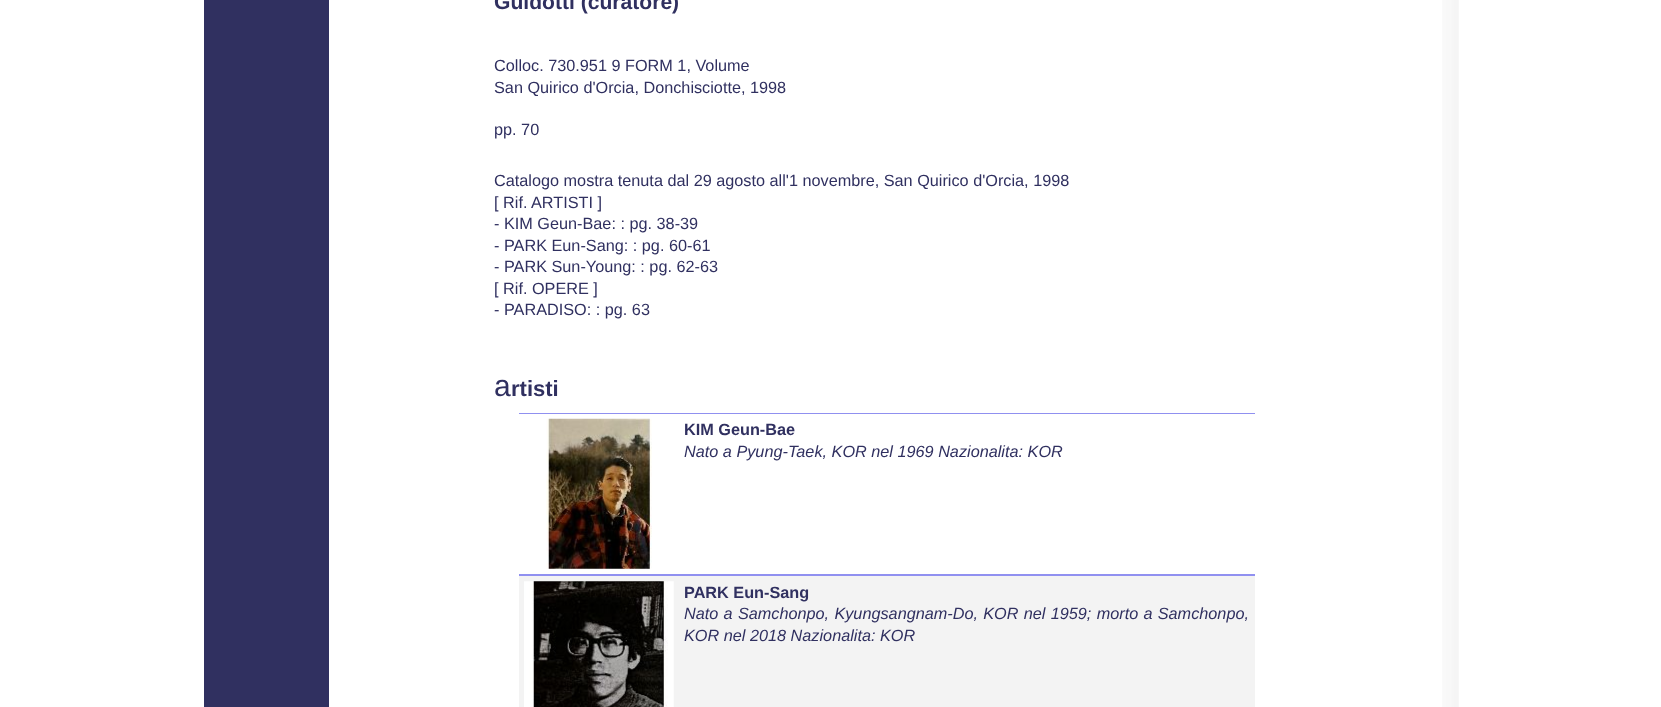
<svg xmlns="http://www.w3.org/2000/svg" width="1661" height="707" viewBox="0 0 1661 707">
  <rect width="100%" height="100%" fill="#fff"/>
  <image x="1442" y="0" width="17" height="707" href="img/1.png"/>
  <path d="M204 0h125v707H204z" fill="#303060"/>
  <path d="M519 413h736v1H519z" fill="#9090f0"/>
  <path d="M519 574h736v2H519z" fill="#9090f0"/>
  <image x="546" y="418" width="106" height="151" href="img/2.png"/>
  <path d="M519 576h736v131H519z" fill="#f3f3f3"/>
  <image x="524" y="581" width="150" height="126" href="img/3.png"/>
  <text x="494" y="9" font-family="Liberation Sans" font-size="21.1" font-weight="bold" fill="#303060">Guidotti (curatore)</text>
  <g font-family="Liberation Sans" font-size="16.25" fill="#303060">
    <text x="494" y="71">Colloc. 730.951 9 FORM 1, Volume</text>
    <text x="494" y="93">San Quirico d'Orcia, Donchisciotte, 1998</text>
    <text x="494" y="135">pp. 70</text>
    <text x="494" y="186">Catalogo mostra tenuta dal 29 agosto all'1 novembre, San Quirico d'Orcia, 1998</text>
    <text x="494" y="208">[ Rif. ARTISTI ]</text>
    <text x="494" y="229">- KIM Geun-Bae: : pg. 38-39</text>
    <text x="494" y="251">- PARK Eun-Sang: : pg. 60-61</text>
    <text x="494" y="272">- PARK Sun-Young: : pg. 62-63</text>
    <text x="494" y="294">[ Rif. OPERE ]</text>
    <text x="494" y="315">- PARADISO: : pg. 63</text>
  </g>
  <text x="494" y="396" font-family="Liberation Sans" font-size="30" fill="#303060">a</text>
  <text x="511" y="396" font-family="Liberation Sans" font-size="22" font-weight="bold" fill="#303060">rtisti</text>
  <text x="684" y="435" font-family="Liberation Sans" font-size="16.25" font-weight="bold" fill="#303060">KIM Geun-Bae</text>
  <text x="684" y="457" font-family="Liberation Sans" font-size="16.25" font-style="italic" fill="#303060">Nato a Pyung-Taek, KOR nel 1969 Nazionalita: KOR</text>
  <text x="684" y="598" font-family="Liberation Sans" font-size="16.25" font-weight="bold" fill="#303060">PARK Eun-Sang</text>
  <g font-family="Liberation Sans" font-size="16.25" font-style="italic" fill="#303060">
    <text x="684" y="619" word-spacing="0.75">Nato a Samchonpo, Kyungsangnam-Do, KOR nel 1959; morto a Samchonpo,</text>
    <text x="684" y="641">KOR nel 2018 Nazionalita: KOR</text>
  </g>
</svg>
